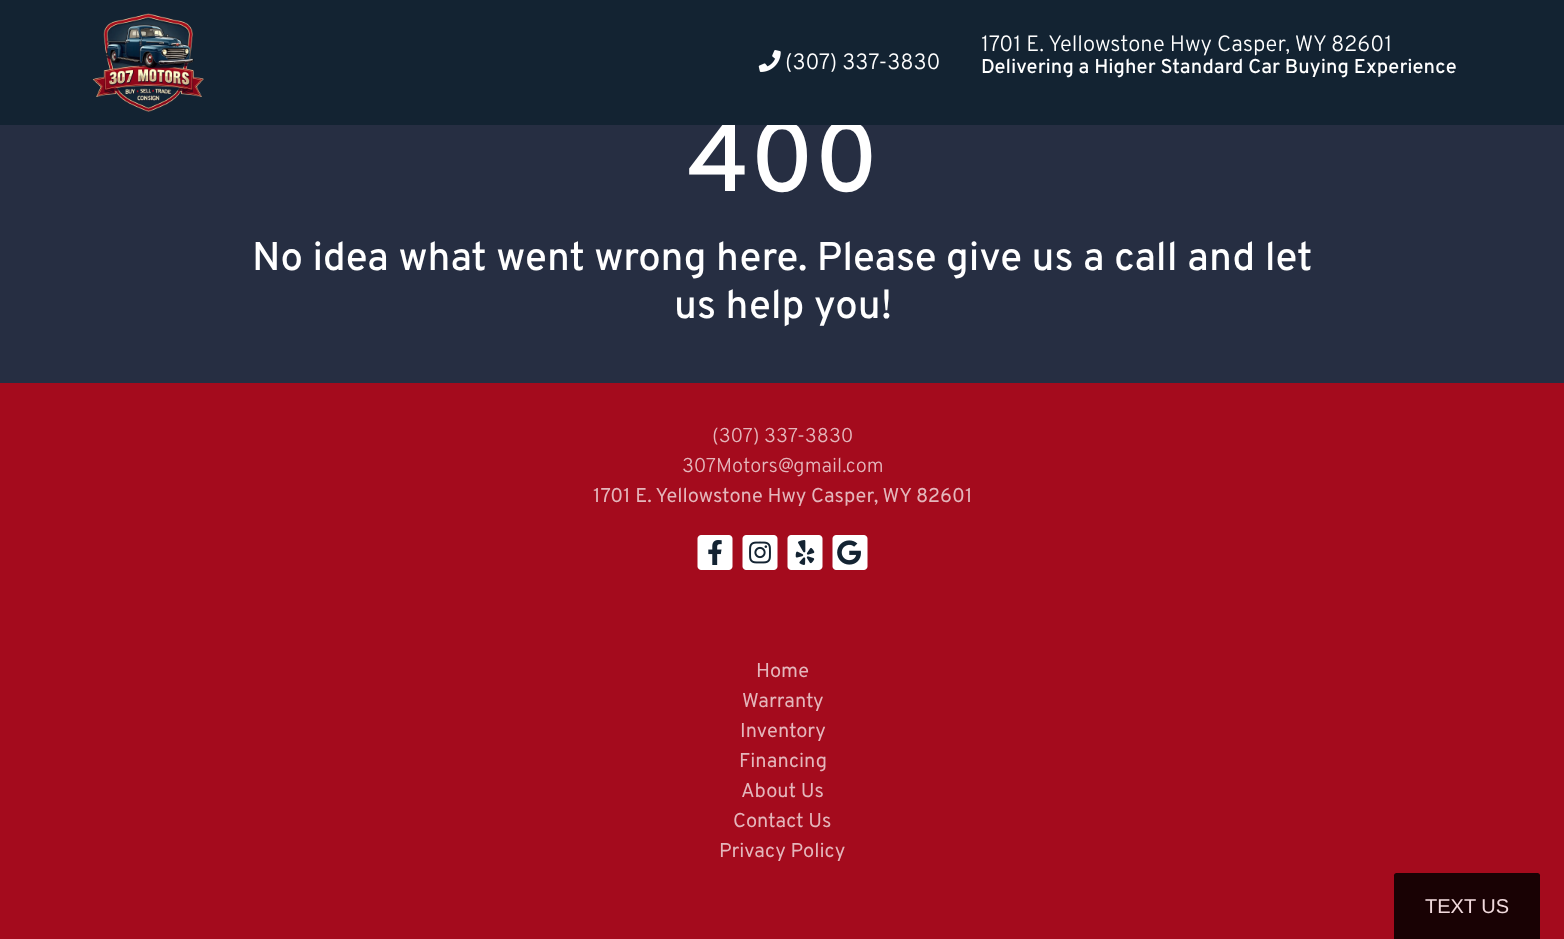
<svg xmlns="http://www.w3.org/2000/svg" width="1564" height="939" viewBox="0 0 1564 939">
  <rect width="100%" height="100%" fill="#262e42"/>
  <path d="M0 383h1564v556H0z" fill="#a40b1d"/>
  <image x="697" y="535" width="36" height="35" href="img/3.png"/>
  <image x="708" y="540" width="14" height="25" href="img/4.png"/>
  <image x="742" y="535" width="36" height="35" href="img/3.png"/>
  <image x="749" y="541" width="22" height="23" href="img/5.png"/>
  <image x="787" y="535" width="36" height="35" href="img/3.png"/>
  <image x="795" y="540" width="20" height="25" href="img/6.png"/>
  <image x="832" y="535" width="36" height="35" href="img/3.png"/>
  <image x="837" y="540" width="24" height="25" href="img/7.png"/>
  <path d="M1396.5 873H1537.5C1539 873 1540 874 1540 875.5V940H1394V875.5C1394 874 1395 873 1396.5 873Z" fill="#190204"/>
  <text x="687" y="191" font-family="Overpass" font-size="100" font-weight="500" fill="#fff">400</text>
  <path d="M0 0h1564v125H0z" fill="#132332"/>
  <image x="92" y="13" width="112" height="99" href="img/1.png"/>
  <image x="758" y="50" width="23" height="22" href="img/2.png"/>
  <text x="981" y="73" font-family="Overpass" font-size="20" font-weight="500" fill="#fff">Delivering a Higher Standard Car Buying Experience</text>
  <g font-family="Overpass" font-size="22" font-weight="300" fill="#fff">
    <text x="981" y="51">1701 E. Yellowstone Hwy Casper, WY 82601</text>
    <text x="785" y="69">(307) 337-3830</text>
  </g>
  <g font-family="Overpass" font-size="40" font-weight="500" fill="#fff">
    <text x="252" y="270">No idea what went wrong here. Please give us a call and let</text>
    <text x="674" y="318">us help you!</text>
  </g>
  <g font-family="Overpass" font-size="20" font-weight="300" fill="#e4b6bb">
    <text x="712" y="442">(307) 337-3830</text>
    <text x="682" y="472">307Motors@gmail.com</text>
  </g>
  <g font-family="Overpass" font-size="20" fill="#e4b6bb">
    <text x="593" y="502">1701 E. Yellowstone Hwy Casper, WY 82601</text>
    <text x="756" y="677">Home</text>
    <text x="742" y="707">Warranty</text>
    <text x="740" y="737">Inventory</text>
    <text x="739" y="767">Financing</text>
    <text x="741" y="797">About Us</text>
    <text x="733" y="827">Contact Us</text>
    <text x="719" y="857">Privacy Policy</text>
  </g>
  <text x="1425" y="913" font-family="Liberation Sans" font-size="20" fill="#f1dadd">TEXT US</text>
</svg>
